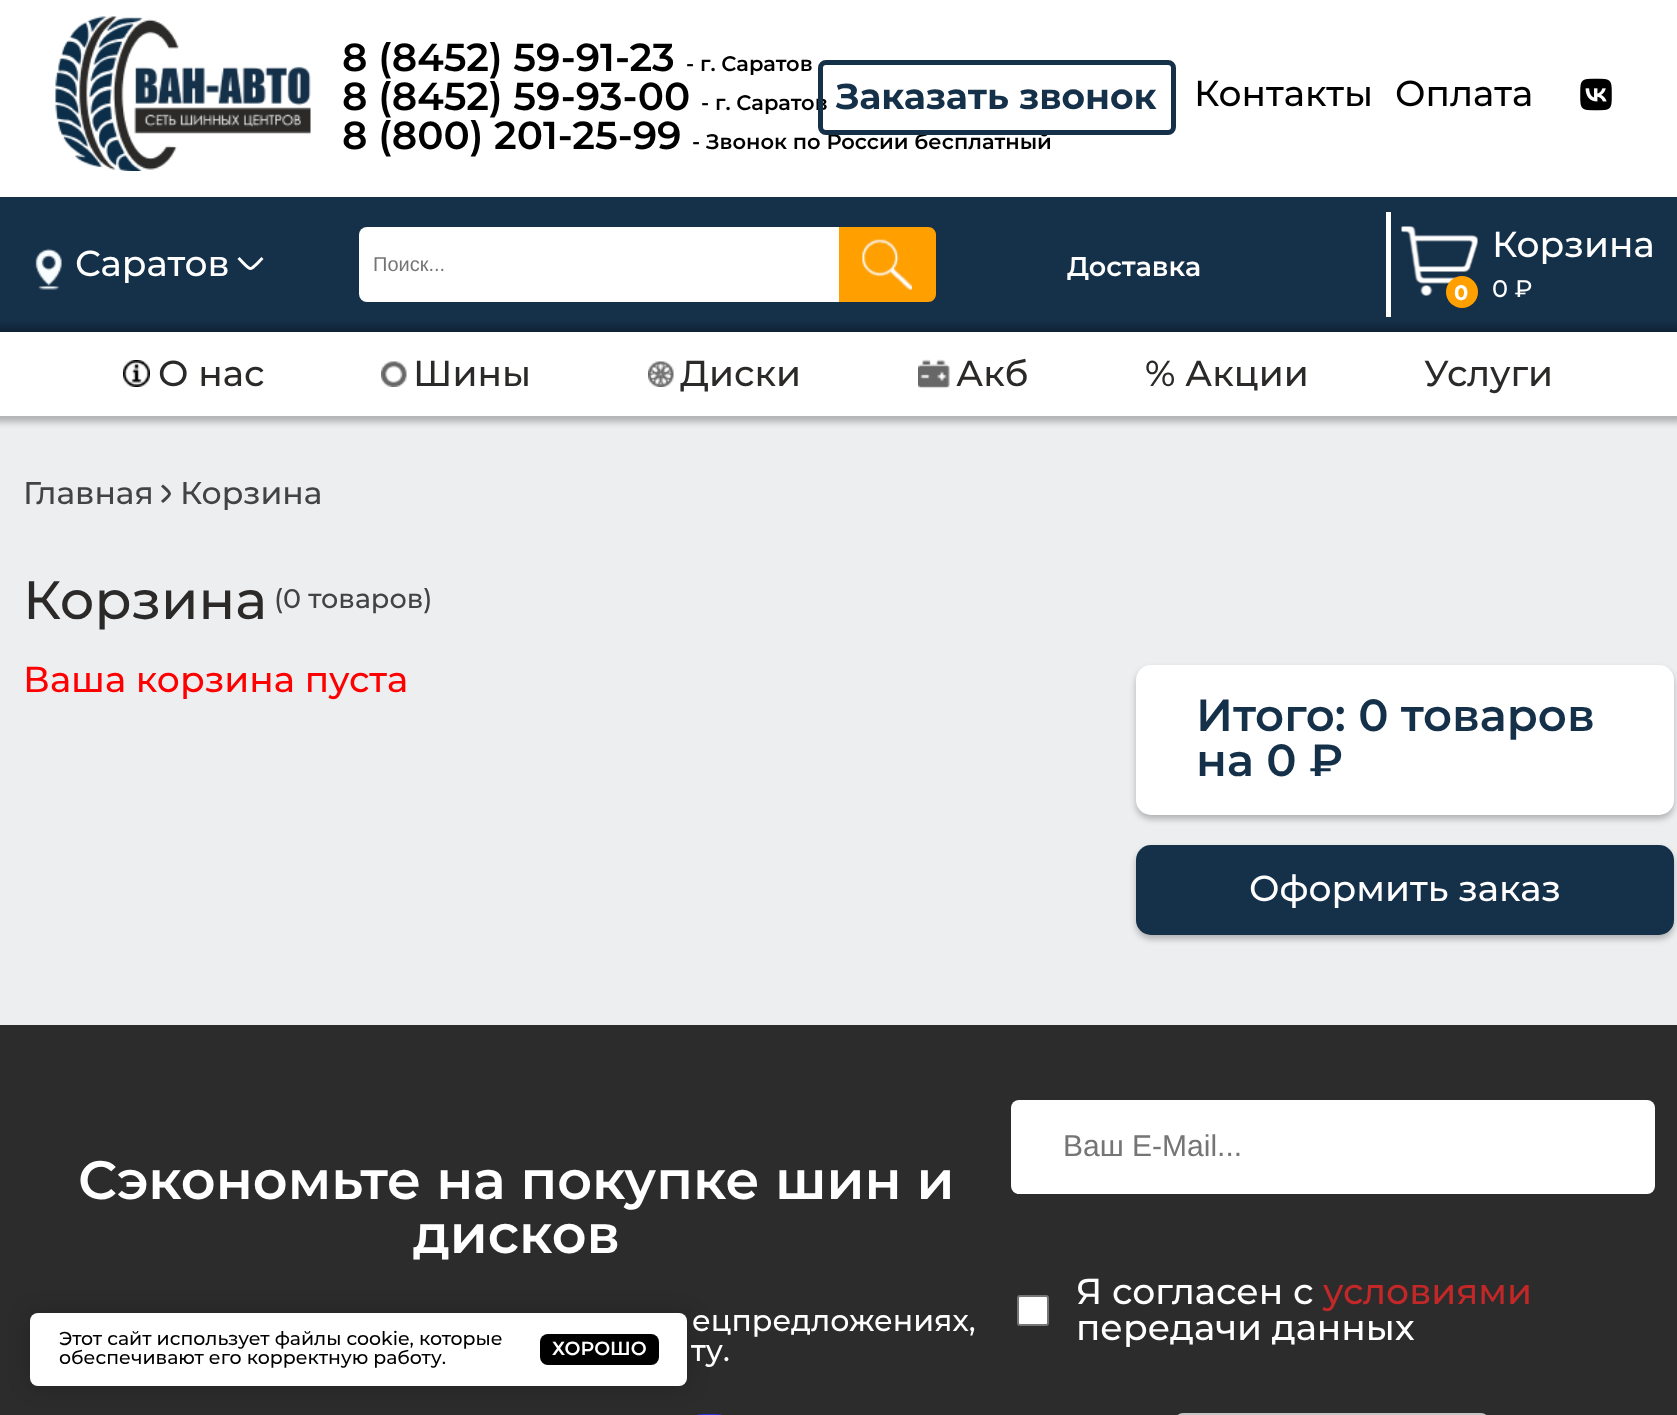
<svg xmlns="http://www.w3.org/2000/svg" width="1677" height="1415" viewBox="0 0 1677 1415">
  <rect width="100%" height="100%" fill="#edeef0"/>
  <path d="M0 0h1677v197H0z" fill="#fff"/>
  <image x="55" y="16" width="256" height="155" href="img/1.png"/>
  <image x="1580" y="78" width="32" height="33" href="img/2.png"/>
  <path d="M0 197h1677v135H0z" fill="#153049"/>
  <image x="35" y="248" width="27" height="42" href="img/3.png"/>
  <path d="M262.5 258C248.5 272 252.5 272 238.5 258" fill="none" stroke="#fff" stroke-width="3"/>
  <rect x="359" y="227" width="570" height="75" rx="8" fill="#fff"/>
  <path d="M839 227H928C932.5 227 936 230.5 936 235V294C936 298.5 932.5 302 928 302H839Z" fill="#ff9f00"/>
  <image x="862" y="239" width="50" height="51" href="img/4.png"/>
  <path d="M-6 326h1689v96H-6z" fill="#00000040" filter="blur(3px)"/>
  <path d="M1386 212h5v105H1386z" fill="#fff"/>
  <image x="1401" y="226" width="77" height="70" href="img/5.png"/>
  <circle cx="1462" cy="292" r="16" fill="#ff9f00"/>
  <path d="M0 332h1677v84H0z" fill="#fff"/>
  <image x="123" y="360" width="27" height="27" href="img/6.png"/>
  <image x="381" y="361" width="26" height="26" href="img/7.png"/>
  <image x="648" y="361" width="26" height="26" href="img/8.png"/>
  <image x="918" y="359" width="32" height="30" href="img/9.png"/>
  <path d="M162 485.5C172 494.5 172 493 162 502" fill="none" stroke="#434343" stroke-width="3"/>
  <rect x="1136" y="669" width="538" height="150" rx="15" fill="#00000040" filter="blur(3px)"/>
  <rect x="1136" y="665" width="538" height="150" rx="15" fill="#fff"/>
  <rect x="1136" y="849" width="538" height="90" rx="15" fill="#00000040" filter="blur(3px)"/>
  <rect x="1136" y="845" width="538" height="90" rx="15" fill="#153049"/>
  <path d="M0 1025h1677v390H0z" fill="#2c2c2c"/>
  <image x="697" y="1414" width="25" height="1" href="img/10.png"/>
  <rect x="1011" y="1100" width="644" height="94" rx="8" fill="#fff"/>
  <rect x="1018" y="1296" width="30" height="29" rx="2" fill="#fff" stroke="#767676" stroke-width="2"/>
  <rect x="1176" y="1413" width="312" height="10" rx="8" fill="#c4c4c4"/>
  <rect x="30" y="1313" width="657" height="73" rx="8" fill="#00000033" filter="blur(11px)"/>
  <rect x="30" y="1313" width="657" height="73" rx="8" fill="#fff"/>
  <rect x="540" y="1334" width="119" height="31" rx="8" fill="#000"/>
  <text x="342" y="71" font-family="Montserrat" font-size="39" font-weight="600" fill="#000">8 (8452) 59-91-23</text>
  <text x="686" y="71" font-family="Montserrat" font-size="21" font-weight="600" fill="#000">- г. Саратов</text>
  <text x="342" y="110" font-family="Montserrat" font-size="39" font-weight="600" fill="#000">8 (8452) 59-93-00</text>
  <text x="701" y="110" font-family="Montserrat" font-size="21" font-weight="600" fill="#000">- г. Саратов</text>
  <text x="342" y="149" font-family="Montserrat" font-size="39" font-weight="600" fill="#000">8 (800) 201-25-99</text>
  <text x="692" y="149" font-family="Montserrat" font-size="21" font-weight="600" fill="#000">- Звонок по России бесплатный</text>
  <g font-family="Montserrat" font-size="36" font-weight="500" fill="#000">
    <text x="1194" y="106">Контакты</text>
    <text x="1395" y="106">Оплата</text>
  </g>
  <rect x="820.5" y="62.5" width="353" height="70" rx="5.5" fill="none" stroke="#153049" stroke-width="5"/>
  <text x="836" y="109" font-family="Montserrat" font-size="36" font-weight="bold" fill="#153049">Заказать звонок</text>
  <text x="75" y="276" font-family="Montserrat" font-size="36" font-weight="500" fill="#fff">Саратов</text>
  <text x="373" y="271" font-family="Liberation Sans" font-size="20" fill="#757575">Поиск...</text>
  <text x="1067" y="276" font-family="Montserrat" font-size="27" font-weight="600" fill="#fff">Доставка</text>
  <text x="1454" y="300" font-family="Montserrat" font-size="21" font-weight="bold" fill="#fff">0</text>
  <text x="1492" y="257" font-family="Montserrat" font-size="36" font-weight="500" fill="#fff">Корзина</text>
  <text x="1492" y="297" font-family="Montserrat" font-size="24" font-weight="500" fill="#fff">0 ₽</text>
  <g font-family="Montserrat" font-size="36" font-weight="500" fill="#2b2a29">
    <text x="158" y="386">О нас</text>
    <text x="413" y="386">Шины</text>
    <text x="680" y="386">Диски</text>
    <text x="956" y="386">Акб</text>
    <text x="1145" y="386">% Акции</text>
    <text x="1424" y="386">Услуги</text>
  </g>
  <g font-family="Montserrat" font-size="31.5" font-weight="500" fill="#434343">
    <text x="23" y="504">Главная</text>
    <text x="180" y="504">Корзина</text>
  </g>
  <text x="23" y="619" font-family="Montserrat" font-size="54" font-weight="500" fill="#2b2a29">Корзина</text>
  <text x="274" y="608" font-family="Montserrat" font-size="27" font-weight="500" fill="#434343">(0 товаров)</text>
  <text x="23" y="692" font-family="Montserrat" font-size="36" font-weight="500" fill="#f00">Ваша корзина пуста</text>
  <g font-family="Montserrat" font-size="45" font-weight="600" fill="#153049">
    <text x="1196" y="731">Итого: 0 товаров</text>
    <text x="1196" y="776">на 0 ₽</text>
  </g>
  <text x="1249" y="901" font-family="Montserrat" font-size="36" font-weight="500" fill="#fff">Оформить заказ</text>
  <g font-family="Montserrat" font-size="54" font-weight="600" fill="#fff">
    <text x="78" y="1199">Сэкономьте на покупке шин и</text>
    <text x="413" y="1253">дисков</text>
  </g>
  <g font-family="Montserrat" font-size="30" font-weight="500" fill="#fff">
    <text x="692" y="1331">ецпредложениях,</text>
    <text x="691" y="1361">ту.</text>
  </g>
  <text x="1063" y="1156" font-family="Liberation Sans" font-size="30" fill="#757575">Ваш E-Mail...</text>
  <text x="1076" y="1304" font-family="Montserrat" font-size="36" font-weight="500" fill="#fff">Я согласен с</text>
  <text x="1323" y="1304" font-family="Montserrat" font-size="36" font-weight="500" fill="#c22828">условиями</text>
  <text x="1076" y="1340" font-family="Montserrat" font-size="36" font-weight="500" fill="#fff">передачи данных</text>
  <g font-family="Montserrat" font-size="18.9" font-weight="500" fill="#000">
    <text x="59" y="1345">Этот сайт использует файлы cookie, которые</text>
    <text x="59" y="1364">обеспечивают его корректную работу.</text>
  </g>
  <text x="552" y="1355" font-family="Montserrat" font-size="18.9" font-weight="600" fill="#fff">ХОРОШО</text>
</svg>
